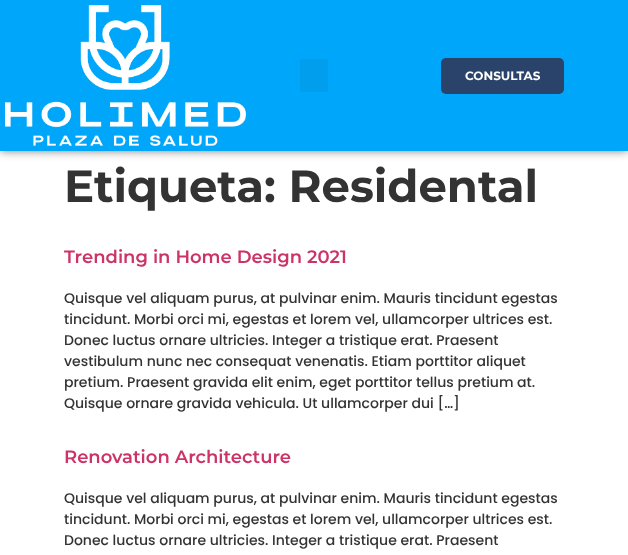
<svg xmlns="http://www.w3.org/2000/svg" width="628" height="555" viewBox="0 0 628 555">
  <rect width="100%" height="100%" fill="#fff"/>
  <path d="M0 0h628v151H0z" fill="#00000080" filter="blur(5px)"/>
  <path d="M0 0h628v151H0z" fill="#00a6f9"/>
  <image x="5" y="5" width="241" height="141" href="img/1.png"/>
  <rect x="300" y="59" width="28" height="33" rx="3" fill="#009eed"/>
  <rect x="441" y="58" width="123" height="36" rx="5" fill="#2a436a"/>
  <text x="465" y="80" font-family="Montserrat" font-size="12" font-weight="bold" fill="#fff">CONSULTAS</text>
  <text x="64" y="202" font-family="Montserrat" font-size="45" font-weight="bold" fill="#333">Etiqueta: Residental</text>
  <text x="64" y="263" font-family="Montserrat" font-size="18" font-weight="600" fill="#c36">Trending in Home Design 2021</text>
  <g font-family="Poppins" font-size="14" font-weight="500" fill="#333">
    <text x="64" y="303">Quisque vel aliquam purus, at pulvinar enim. Mauris tincidunt egestas</text>
    <text x="64" y="324">tincidunt. Morbi orci mi, egestas et lorem vel, ullamcorper ultrices est.</text>
    <text x="64" y="345">Donec luctus ornare ultricies. Integer a tristique erat. Praesent</text>
    <text x="64" y="366">vestibulum nunc nec consequat venenatis. Etiam porttitor aliquet</text>
    <text x="64" y="387">pretium. Praesent gravida elit enim, eget porttitor tellus pretium at.</text>
    <text x="64" y="408">Quisque ornare gravida vehicula. Ut ullamcorper dui […]</text>
  </g>
  <text x="64" y="463" font-family="Montserrat" font-size="18" font-weight="600" fill="#c36">Renovation Architecture</text>
  <g font-family="Poppins" font-size="14" font-weight="500" fill="#333">
    <text x="64" y="503">Quisque vel aliquam purus, at pulvinar enim. Mauris tincidunt egestas</text>
    <text x="64" y="524">tincidunt. Morbi orci mi, egestas et lorem vel, ullamcorper ultrices est.</text>
    <text x="64" y="545">Donec luctus ornare ultricies. Integer a tristique erat. Praesent</text>
  </g>
</svg>
